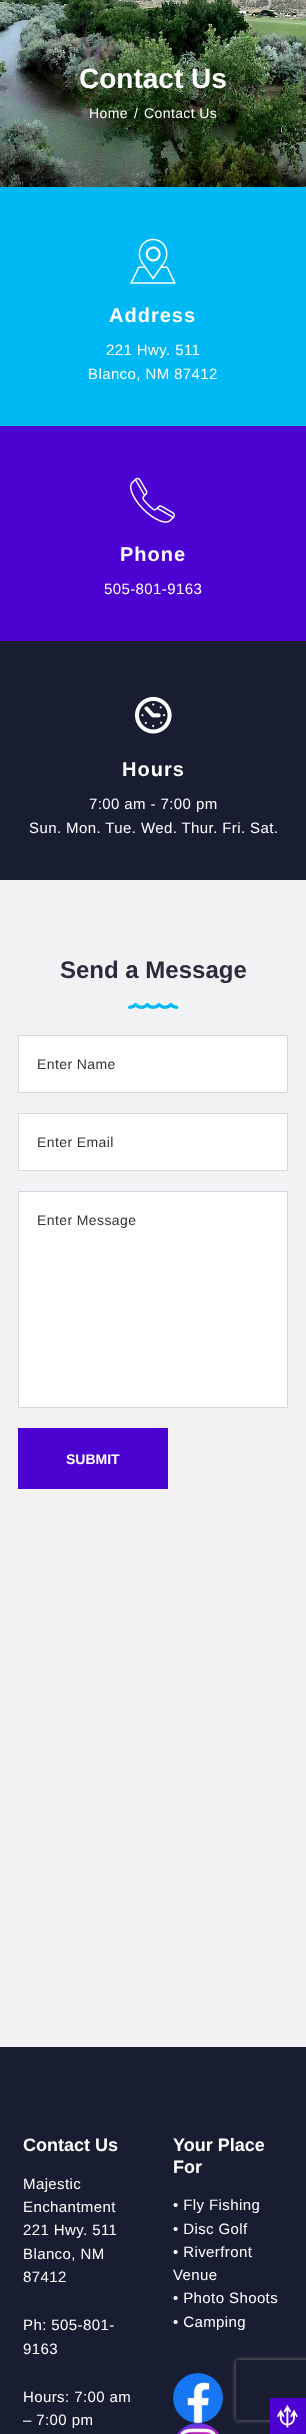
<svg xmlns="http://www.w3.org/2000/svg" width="306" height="2434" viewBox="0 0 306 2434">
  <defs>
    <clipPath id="clip1"><path d="M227 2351H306V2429H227ZM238 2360H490C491 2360 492 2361 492 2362V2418C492 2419 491 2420 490 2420H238C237 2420 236 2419 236 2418V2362C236 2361 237 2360 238 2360Z" clip-rule="evenodd"/></clipPath>
  </defs>
  <rect width="100%" height="100%" fill="#f2f2f4"/>
  <image x="0" y="0" width="306" height="187" href="img/1.png"/>
  <path d="M0 187h306v239H0z" fill="#00b8f4"/>
  <image x="130" y="238" width="46" height="46" href="img/2.png"/>
  <path d="M0 426h306v215H0z" fill="#4c02d0"/>
  <image x="130" y="477" width="45" height="46" href="img/3.png"/>
  <path d="M0 641h306v239H0z" fill="#191d32"/>
  <image x="135" y="696" width="37" height="38" href="img/4.png"/>
  <image x="128" y="1002" width="51" height="7" href="img/5.png"/>
  <path d="M18.5 1035.5h269v57H18.5z" fill="#fff" stroke="#d5d5dd"/>
  <path d="M18.5 1113.5h269v57H18.5z" fill="#fff" stroke="#d5d5dd"/>
  <path d="M18.5 1191.5h269v216H18.5z" fill="#fff" stroke="#d5d5dd"/>
  <path d="M18 1428h150v61H18z" fill="#4c02d0"/>
  <path d="M0 2047h306v387H0z" fill="#191d32"/>
  <image x="173" y="2373" width="50" height="50" href="img/6.png"/>
  <image x="177" y="2423" width="42" height="11" href="img/7.png"/>
  <g clip-path="url(#clip1)">
    <rect x="236" y="2360" width="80" height="60" rx="2" fill="#808080" filter="blur(2.5px)"/>
  </g>
  <path d="M270 2398h36v36H270z" fill="#4c02d0"/>
  <image x="277" y="2405" width="21" height="23" href="img/8.png"/>
  <text x="79" y="88" font-family="Liberation Sans" font-size="28" font-weight="bold" fill="#fff">Contact Us</text>
  <g font-family="Liberation Sans" font-size="14" letter-spacing="0.4" fill="#fff">
    <text x="89" y="118">Home</text>
    <text x="134" y="118">/</text>
    <text x="144" y="118">Contact Us</text>
  </g>
  <text x="109" y="322" font-family="Liberation Sans" font-size="20" font-weight="bold" letter-spacing="1" fill="#fff">Address</text>
  <g font-family="Liberation Sans" font-size="15" letter-spacing="0.4" fill="#fff">
    <text x="106" y="355">221 Hwy. 511</text>
    <text x="88" y="379">Blanco, NM 87412</text>
  </g>
  <text x="120" y="561" font-family="Liberation Sans" font-size="20" font-weight="bold" letter-spacing="1" fill="#fff">Phone</text>
  <text x="104" y="594" font-family="Liberation Sans" font-size="15" letter-spacing="0.4" fill="#fff">505-801-9163</text>
  <text x="122" y="776" font-family="Liberation Sans" font-size="20" font-weight="bold" letter-spacing="1" fill="#fff">Hours</text>
  <g font-family="Liberation Sans" font-size="15" letter-spacing="0.4" fill="#fff">
    <text x="89" y="809">7:00 am - 7:00 pm</text>
    <text x="29" y="833">Sun. Mon. Tue. Wed. Thur. Fri. Sat.</text>
  </g>
  <text x="60" y="978" font-family="Liberation Sans" font-size="24" font-weight="bold" fill="#2e2a3b">Send a Message</text>
  <g font-family="Liberation Sans" font-size="14" letter-spacing="0.4" fill="#333">
    <text x="37" y="1069">Enter Name</text>
    <text x="37" y="1147">Enter Email</text>
    <text x="37" y="1225">Enter Message</text>
  </g>
  <text x="66" y="1464" font-family="Liberation Sans" font-size="14" font-weight="bold" fill="#fff">SUBMIT</text>
  <text x="23" y="2151" font-family="Liberation Sans" font-size="18" font-weight="bold" fill="#fff">Contact Us</text>
  <g font-family="Liberation Sans" font-size="15" letter-spacing="0.4" fill="#fff">
    <text x="23" y="2189">Majestic</text>
    <text x="23" y="2212">Enchantment</text>
    <text x="23" y="2235">221 Hwy. 511</text>
    <text x="23" y="2259">Blanco, NM</text>
    <text x="23" y="2282">87412</text>
    <text x="23" y="2330">Ph: 505-801-</text>
    <text x="23" y="2354">9163</text>
    <text x="23" y="2402">Hours: 7:00 am</text>
    <text x="23" y="2425">– 7:00 pm</text>
  </g>
  <g font-family="Liberation Sans" font-size="18" font-weight="bold" fill="#fff">
    <text x="173" y="2151">Your Place</text>
    <text x="173" y="2173">For</text>
  </g>
  <g font-family="Liberation Sans" font-size="15" letter-spacing="0.4" fill="#fff">
    <text x="173" y="2210">• Fly Fishing</text>
    <text x="173" y="2234">• Disc Golf</text>
    <text x="173" y="2257">• Riverfront</text>
    <text x="173" y="2280">Venue</text>
    <text x="173" y="2303">• Photo Shoots</text>
    <text x="173" y="2327">• Camping</text>
  </g>
</svg>
